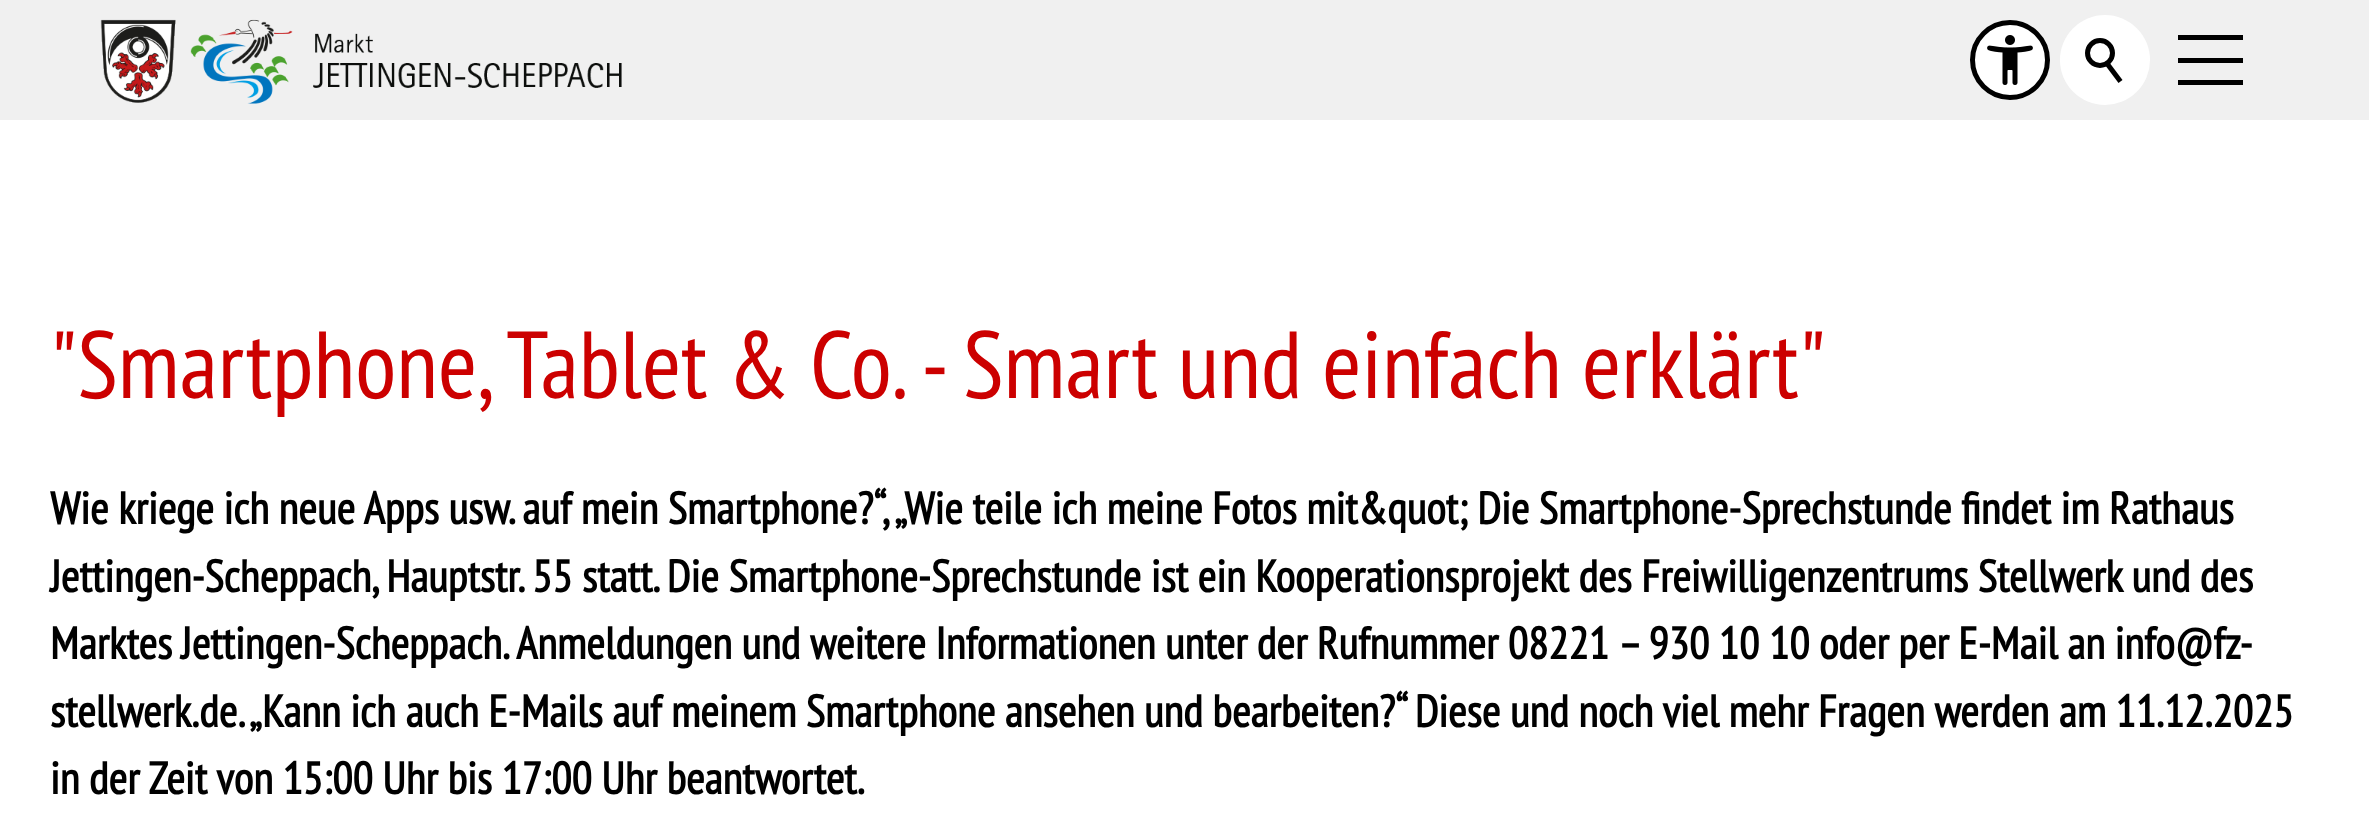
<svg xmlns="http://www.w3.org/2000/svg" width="2369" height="836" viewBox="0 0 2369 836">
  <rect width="100%" height="100%" fill="#fff"/>
  <path d="M0 0h2369v120H0z" fill="#f0f0f0"/>
  <image x="100" y="19" width="522" height="85" href="img/1.png"/>
  <circle cx="2010" cy="60" r="40" fill="#fff"/>
  <image x="1987" y="35" width="46" height="50" href="img/2.png"/>
  <circle cx="2010" cy="60" r="37.5" fill="none" stroke="#000" stroke-width="5"/>
  <circle cx="2105" cy="60" r="45" fill="#fff"/>
  <circle cx="2100" cy="53" r="12.5" fill="none" stroke="#000" stroke-width="5"/>
  <path d="M2109 62L2122.5 80L2118.5 83L2105 65Z" fill="#000"/>
  <path d="M2178 35h65v5H2178z" fill="#000"/>
  <path d="M2178 58h65v5H2178z" fill="#000"/>
  <path d="M2178 80h65v5H2178z" fill="#000"/>
  <text x="50" y="398" font-family="PT Sans Narrow" font-size="95" fill="#c00">"Smartphone, Tablet &amp; Co. - Smart und einfach erklärt"</text>
  <g font-family="PT Sans Narrow" font-size="45" font-weight="bold" fill="#000">
    <text x="50" y="524">Wie kriege ich neue Apps usw. auf mein Smartphone?“, „Wie teile ich meine Fotos mit&amp;quot; Die Smartphone-Sprechstunde findet im Rathaus</text>
    <text x="50" y="592">Jettingen-Scheppach, Hauptstr. 55 statt. Die Smartphone-Sprechstunde ist ein Kooperationsprojekt des Freiwilligenzentrums Stellwerk und des</text>
    <text x="50" y="659" word-spacing="-1">Marktes Jettingen-Scheppach.</text>
    <text x="516" y="659">Anmeldungen und weitere Informationen unter der Rufnummer 08221 – 930 10 10 oder per E-Mail an info@fz-</text>
    <text x="50" y="727">stellwerk.de.</text>
    <text x="249" y="727">„Kann ich auch E-Mails auf meinem Smartphone ansehen und bearbeiten?“ Diese und noch viel mehr Fragen werden am 11.12.2025</text>
    <text x="50" y="794">in der Zeit von 15:00 Uhr bis 17:00 Uhr beantwortet.</text>
  </g>
</svg>
